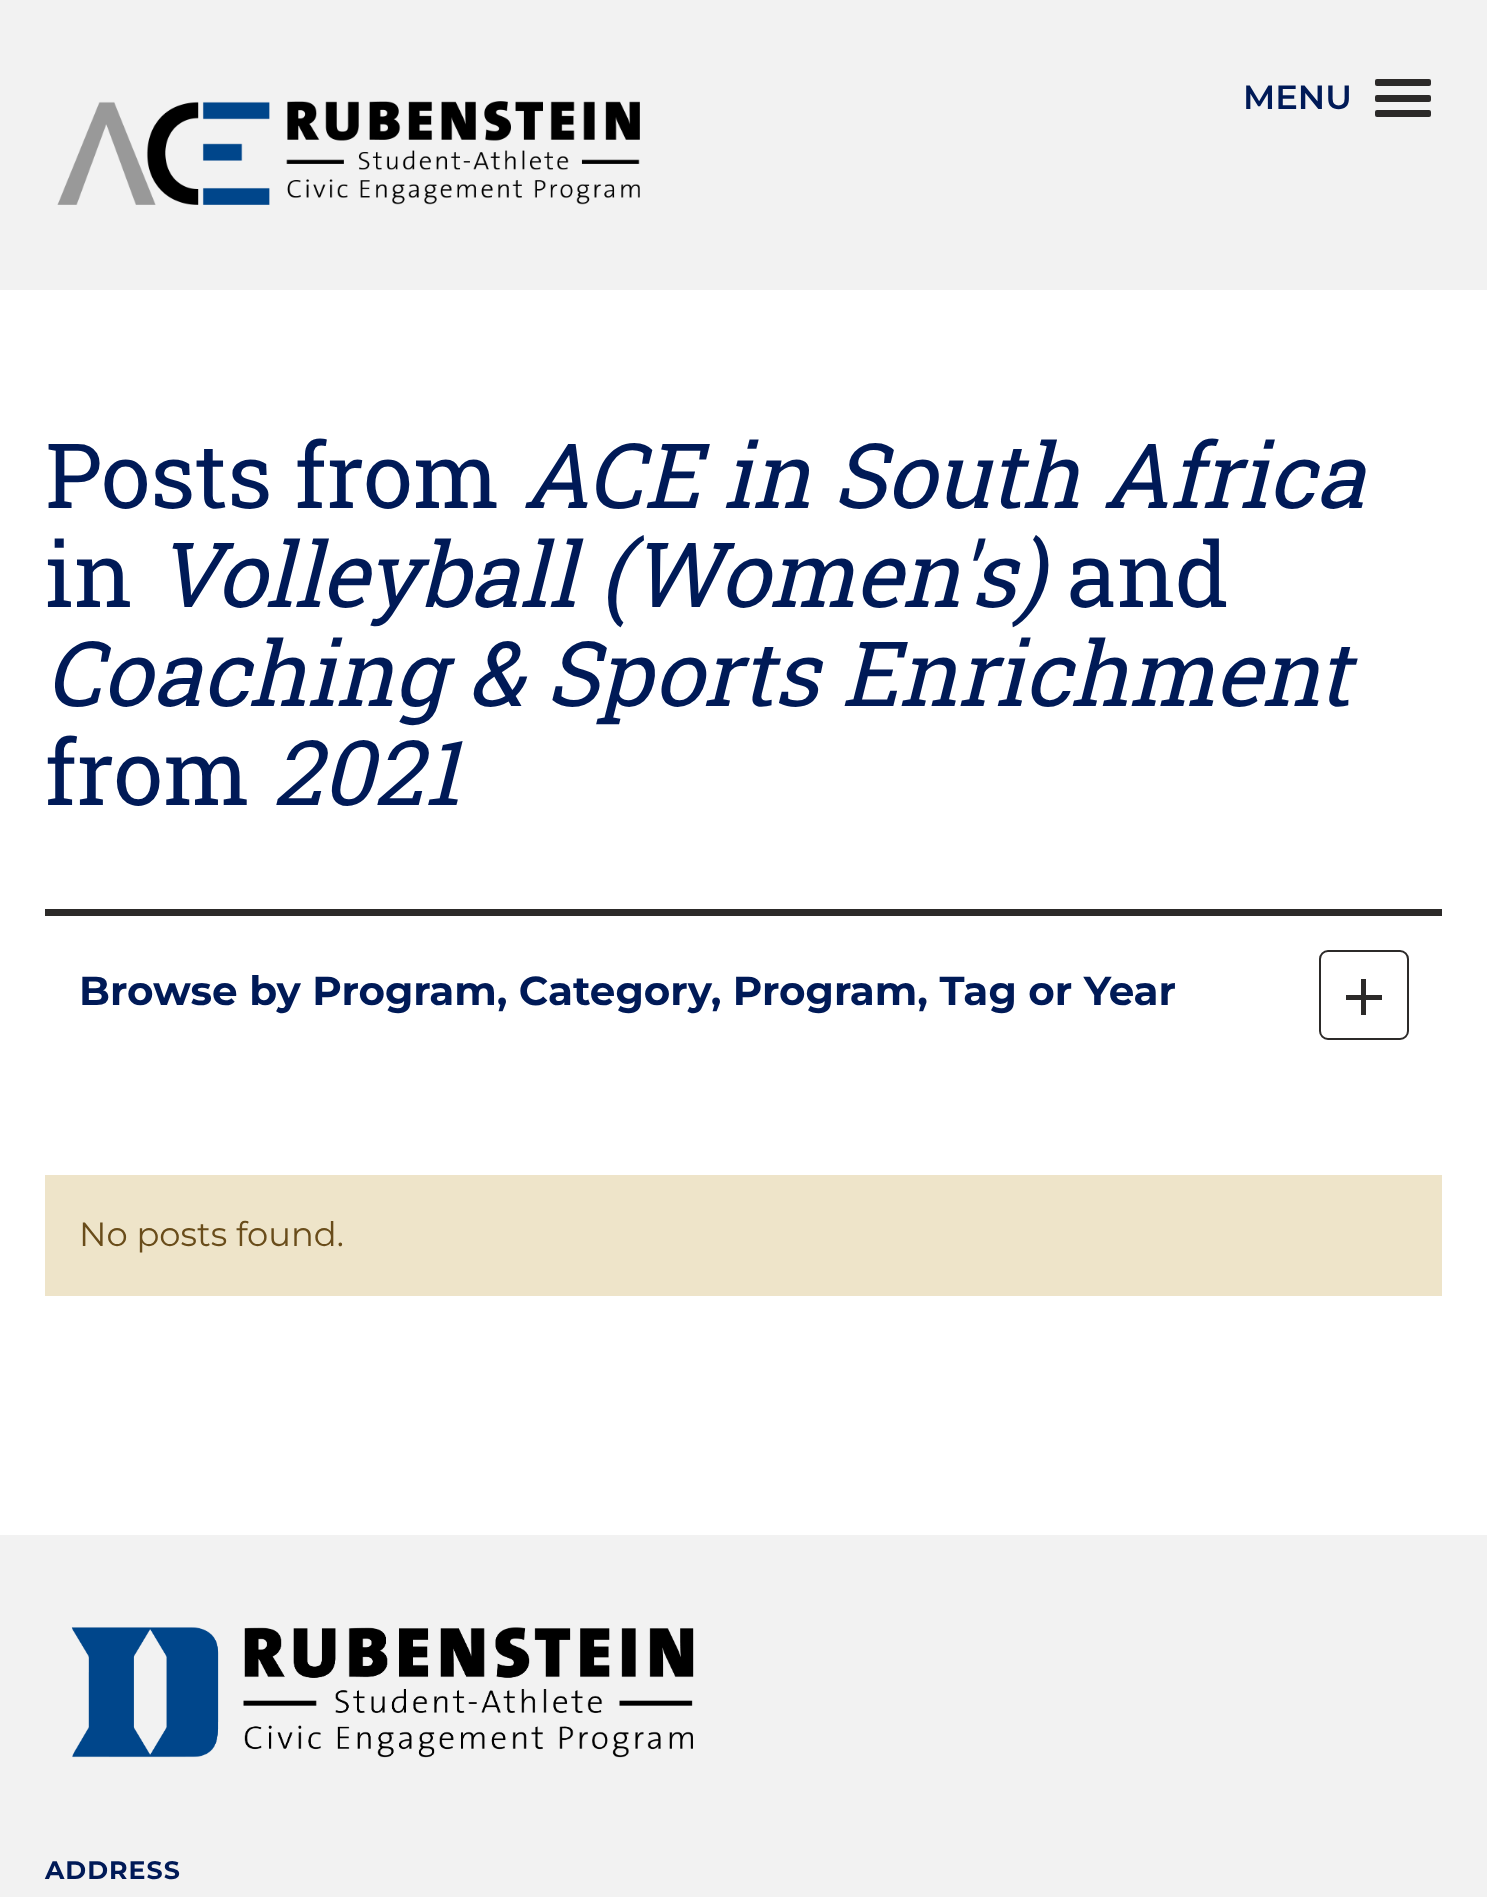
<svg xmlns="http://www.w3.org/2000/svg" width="1487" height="1897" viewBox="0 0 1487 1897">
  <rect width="100%" height="100%" fill="#fff"/>
  <path d="M0 0h1487v290H0z" fill="#f2f2f2"/>
  <rect x="1375" y="79" width="56" height="7" rx="2" fill="#2c2a29"/>
  <rect x="1375" y="95" width="56" height="7" rx="2" fill="#2c2a29"/>
  <rect x="1375" y="110" width="56" height="7" rx="2" fill="#2c2a29"/>
  <image x="57" y="101" width="583" height="104" href="img/1.png"/>
  <path d="M45 909h1397v7H45z" fill="#2c2a29"/>
  <rect x="1320" y="951" width="88" height="88" rx="8" fill="none" stroke="#2c2a29" stroke-width="2"/>
  <path d="M1346 995h36v5H1346z" fill="#2c2a29"/>
  <path d="M1361 979h5v36H1361z" fill="#2c2a29"/>
  <path d="M45 1175h1397v121H45z" fill="#eee4c9"/>
  <path d="M0 1535h1487v362H0z" fill="#f2f2f2"/>
  <image x="71" y="1627" width="623" height="131" href="img/2.png"/>
  <text x="1243" y="109" font-family="Montserrat" font-size="33.75" font-weight="600" fill="#001a57">MENU</text>
  <text x="45" y="508" font-family="Roboto Slab" font-size="90" fill="#001a57">Posts from</text>
  <text x="522" y="508" font-family="Roboto Slab" font-size="90" font-style="italic" fill="#001a57">ACE in South Africa</text>
  <text x="45" y="607" font-family="Roboto Slab" font-size="90" fill="#001a57">in</text>
  <text x="155" y="607" font-family="Roboto Slab" font-size="90" font-style="italic" fill="#001a57">Volleyball (Women's)</text>
  <text x="1067" y="607" font-family="Roboto Slab" font-size="90" fill="#001a57">and</text>
  <text x="45" y="706" font-family="Roboto Slab" font-size="90" font-style="italic" fill="#001a57">Coaching &amp; Sports Enrichment</text>
  <text x="45" y="805" font-family="Roboto Slab" font-size="90" fill="#001a57">from</text>
  <text x="272" y="805" font-family="Roboto Slab" font-size="90" font-style="italic" fill="#001a57">2021</text>
  <text x="79" y="1005" font-family="Montserrat" font-size="40.5" font-weight="bold" fill="#001a57">Browse by Program, Category, Program, Tag or Year</text>
  <text x="79" y="1246" font-family="Montserrat" font-size="33.75" fill="#694c1a">No posts found.</text>
  <text x="45" y="1879" font-family="Montserrat" font-size="25.25" font-weight="bold" letter-spacing="1" fill="#001a57">ADDRESS</text>
</svg>
